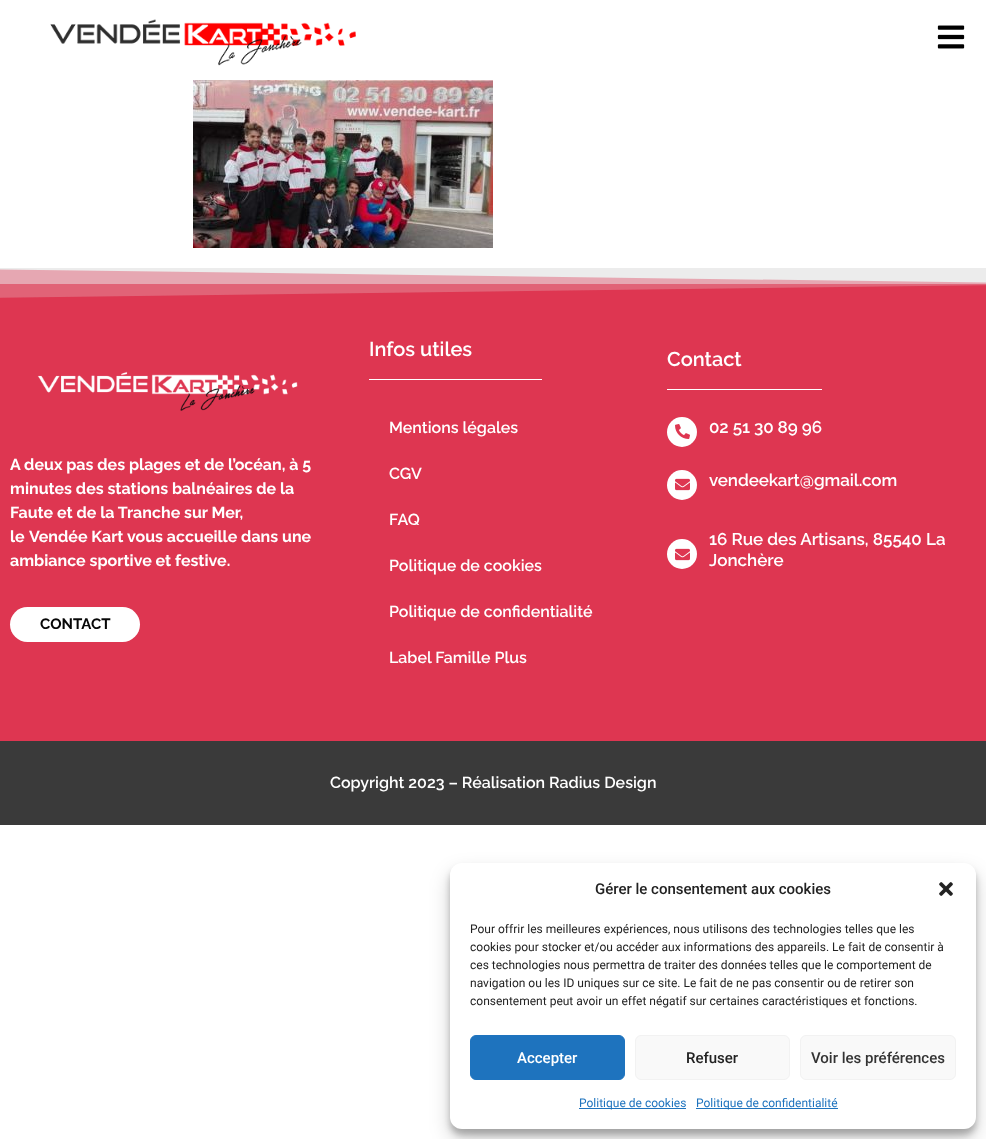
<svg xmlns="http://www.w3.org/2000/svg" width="986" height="1139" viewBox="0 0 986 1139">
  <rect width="100%" height="100%" fill="#fff"/>
  <image x="50" y="19" width="306" height="47" href="img/1.png"/>
  <image x="937" y="25" width="28" height="24" href="img/2.png"/>
  <image x="193" y="80" width="300" height="168" href="img/3.png"/>
  <path d="M0 284h986v457H0z" fill="#de3651"/>
  <path d="M0 269h986v15H0z" fill="#e5919f"/>
  <path d="M-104 268H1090V284Z" fill="#ececec"/>
  <path d="M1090 268H-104V299L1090 284Z" fill="#ececec40"/>
  <image x="37" y="371" width="261" height="40" href="img/4.png"/>
  <rect x="10" y="607" width="130" height="35" rx="17.5" fill="#fff"/>
  <path d="M369 379h173v1H369z" fill="#fff"/>
  <path d="M667 389h155v1H667z" fill="#fff"/>
  <circle cx="682" cy="432" r="15" fill="#feffff"/>
  <image x="675" y="424" width="15" height="15" href="img/5.png"/>
  <circle cx="682" cy="485" r="15" fill="#feffff"/>
  <image x="675" y="478" width="15" height="13" href="img/6.png"/>
  <circle cx="682" cy="554" r="15" fill="#feffff"/>
  <image x="675" y="548" width="15" height="13" href="img/6.png"/>
  <path d="M0 741h986v84H0z" fill="#3a3a3a"/>
  <rect x="450" y="869" width="526" height="266" rx="12" fill="#0000003b" filter="blur(3px)"/>
  <rect x="450" y="873" width="526" height="266" rx="12" fill="#00000030" filter="blur(10px)"/>
  <rect x="450" y="863" width="526" height="266" rx="12" fill="#fff"/>
  <image x="939" y="882" width="14" height="14" href="img/7.png"/>
  <rect x="470.5" y="1035.5" width="154" height="44" rx="5.5" fill="#1e73be" stroke="#1e73be"/>
  <rect x="635.5" y="1035.5" width="154" height="44" rx="5.5" fill="#f9f9f9" stroke="#f2f2f2"/>
  <rect x="800.5" y="1035.5" width="155" height="44" rx="5.5" fill="#f9f9f9" stroke="#f2f2f2"/>
  <path d="M579 1108h107v1H579z" fill="#1e73be"/>
  <path d="M696 1108h142v1H696z" fill="#1e73be"/>
  <g font-family="Raleway" font-size="16" font-weight="bold" fill="#fff">
    <text x="10" y="470">A deux pas des plages et de l’océan, à 5</text>
    <text x="10" y="494">minutes des stations balnéaires de la</text>
    <text x="10" y="518">Faute et de la Tranche sur Mer,</text>
    <text x="10" y="542">le</text>
  </g>
  <text x="29" y="542" font-family="'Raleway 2'" font-size="16" font-weight="bold" fill="#fff">Vendée Kart</text>
  <g font-family="Raleway" font-size="16" font-weight="bold" fill="#fff">
    <text x="127" y="542">vous accueille dans une</text>
    <text x="10" y="566">ambiance sportive et festive.</text>
  </g>
  <text x="40" y="629" font-family="'Raleway 2'" font-size="15" font-weight="bold" fill="#070707">CONTACT</text>
  <text x="369" y="356" font-family="Raleway" font-size="20" font-weight="600" fill="#fff">Infos utiles</text>
  <g font-family="Raleway" font-size="16" font-weight="600" fill="#fff">
    <text x="389" y="433">Mentions légales</text>
    <text x="389" y="479">CGV</text>
    <text x="389" y="525">FAQ</text>
    <text x="389" y="571">Politique de cookies</text>
    <text x="389" y="617">Politique de confidentialité</text>
    <text x="389" y="663">Label Famille Plus</text>
  </g>
  <text x="667" y="366" font-family="Raleway" font-size="20" font-weight="600" fill="#fff">Contact</text>
  <g font-family="Raleway" font-size="17" font-weight="600" letter-spacing="-0.1" fill="#fff">
    <text x="709" y="433">02 51 30 89 96</text>
    <text x="709" y="486">vendeekart@gmail.com</text>
  </g>
  <g font-family="Raleway" font-size="17" font-weight="600" fill="#fff">
    <text x="709" y="545">16 Rue des Artisans, 85540 La</text>
    <text x="709" y="566">Jonchère</text>
  </g>
  <text x="330" y="788" font-family="Raleway" font-size="16" font-weight="600" fill="#fff">Copyright 2023 – Réalisation Radius Design</text>
  <text x="595" y="894" font-family="Roboto" font-size="15" font-weight="500" fill="#222">Gérer le consentement aux cookies</text>
  <g font-family="Roboto" font-size="12" fill="#222">
    <text x="470" y="933">Pour offrir les meilleures expériences, nous utilisons des technologies telles que les</text>
    <text x="470" y="951">cookies pour stocker et/ou accéder aux informations des appareils. Le fait de consentir à</text>
    <text x="470" y="969">ces technologies nous permettra de traiter des données telles que le comportement de</text>
    <text x="470" y="987">navigation ou les ID uniques sur ce site. Le fait de ne pas consentir ou de retirer son</text>
    <text x="470" y="1005">consentement peut avoir un effet négatif sur certaines caractéristiques et fonctions.</text>
  </g>
  <text x="517" y="1063" font-family="Roboto" font-size="15" font-weight="500" fill="#fff">Accepter</text>
  <text x="686" y="1063" font-family="Roboto" font-size="15" font-weight="500" fill="#222">Refuser</text>
  <text x="811" y="1063" font-family="Roboto" font-size="15" font-weight="500" fill="#333">Voir les préférences</text>
  <g font-family="Roboto" font-size="12" fill="#1e73be">
    <text x="579" y="1107">Politique de cookies</text>
    <text x="696" y="1107">Politique de confidentialité</text>
  </g>
</svg>
